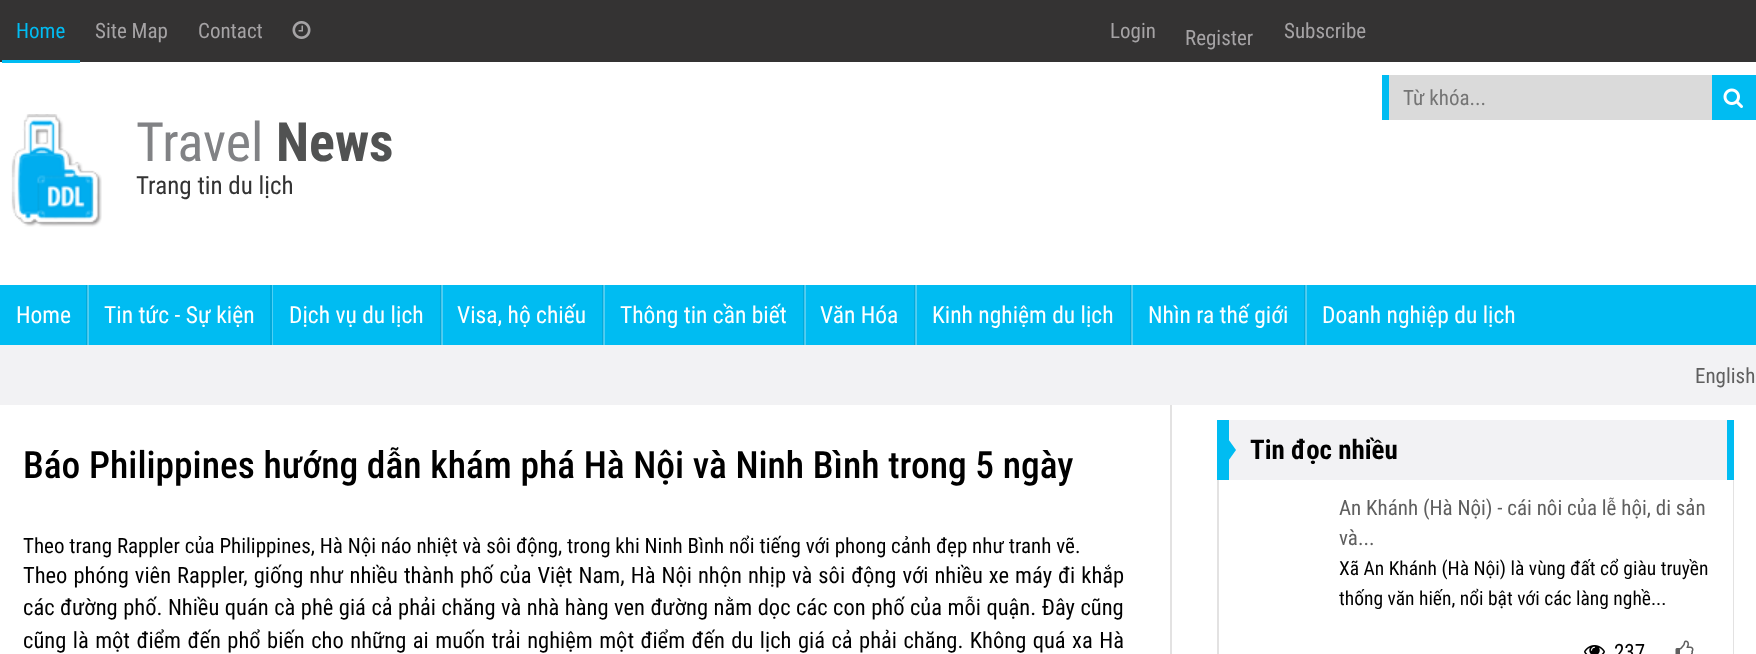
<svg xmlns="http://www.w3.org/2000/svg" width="1756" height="654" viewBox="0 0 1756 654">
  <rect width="100%" height="100%" fill="#fff"/>
  <path d="M0 0h1756v62H0z" fill="#343333"/>
  <path d="M2 60h78v3H2z" fill="#00bcf2"/>
  <image x="292" y="21" width="19" height="18" href="img/1.png"/>
  <path d="M1389 75h323v45H1389z" fill="#dadada"/>
  <path d="M1382 75h7v45H1382z" fill="#00bcf2"/>
  <path d="M1712 75h44v45H1712z" fill="#00bcf2"/>
  <image x="1723" y="88" width="20" height="20" href="img/2.png"/>
  <image x="11" y="114" width="91" height="113" href="img/3.png"/>
  <path d="M0 285h1756v60H0z" fill="#00bcf2"/>
  <path d="M1306 285h1v60H1306z" fill="#4dd0f6"/>
  <path d="M1132 285h1v60H1132z" fill="#4dd0f6"/>
  <path d="M916 285h1v60H916z" fill="#4dd0f6"/>
  <path d="M805 285h1v60H805z" fill="#4dd0f6"/>
  <path d="M604 285h1v60H604z" fill="#4dd0f6"/>
  <path d="M442 285h1v60H442z" fill="#4dd0f6"/>
  <path d="M88 285h1v60H88z" fill="#4dd0f6"/>
  <path d="M86 285h1v60H86z" fill="#00a9da"/>
  <path d="M87 285h1v60H87z" fill="#4dc3e5"/>
  <path d="M270 285h2v60H270z" fill="#00a9da"/>
  <path d="M440 285h1v60H440z" fill="#00a9da"/>
  <path d="M441 285h1v60H441z" fill="#4dc3e5"/>
  <path d="M272 285h1v60H272z" fill="#4dd0f6"/>
  <path d="M602 285h1v60H602z" fill="#00a9da"/>
  <path d="M603 285h1v60H603z" fill="#4dc3e5"/>
  <path d="M803 285h1v60H803z" fill="#00a9da"/>
  <path d="M804 285h1v60H804z" fill="#4dc3e5"/>
  <path d="M914 285h1v60H914z" fill="#00a9da"/>
  <path d="M915 285h1v60H915z" fill="#4dc3e5"/>
  <path d="M1130 285h1v60H1130z" fill="#00a9da"/>
  <path d="M1131 285h1v60H1131z" fill="#4dc3e5"/>
  <path d="M1304 285h1v60H1304z" fill="#00a9da"/>
  <path d="M1305 285h1v60H1305z" fill="#4dc3e5"/>
  <path d="M0 345h1756v60H0z" fill="#f2f2f4"/>
  <path d="M1170 405h2v249H1170z" fill="#e3e2e2"/>
  <path d="M1229 420h498v60H1229z" fill="#f2f2f4"/>
  <path d="M1727 420h7v60H1727z" fill="#00bcf2"/>
  <path d="M1217 420h12v60H1217z" fill="#00bcf2"/>
  <path d="M1228.5 460.5V439.5L1236 450Z" fill="#00bcf2"/>
  <path d="M1733 480h1v174H1733z" fill="#e3e2e2"/>
  <path d="M1217 480h2v174H1217z" fill="#e3e2e2"/>
  <image x="1584" y="645" width="21" height="9" href="img/4.png"/>
  <image x="1675" y="640" width="19" height="14" href="img/5.png"/>
  <text x="16" y="38" font-family="Roboto Condensed" font-size="21" fill="#00bcf2">Home</text>
  <g font-family="Roboto Condensed" font-size="21" fill="#a5a3a5">
    <text x="95" y="38">Site Map</text>
    <text x="198" y="38">Contact</text>
    <text x="1110" y="38">Login</text>
    <text x="1185" y="45">Register</text>
    <text x="1284" y="38">Subscribe</text>
  </g>
  <text x="1403" y="105" font-family="Roboto Condensed" font-size="21" fill="#757575">Từ khóa...</text>
  <text x="136" y="161" font-family="Roboto Condensed" font-size="54" fill="#818285">Travel</text>
  <text x="276" y="161" font-family="Roboto Condensed" font-size="54" font-weight="bold" fill="#515252">News</text>
  <text x="136" y="194" font-family="Roboto Condensed" font-size="25" fill="#333">Trang tin du lịch</text>
  <g font-family="Roboto Condensed" font-size="23.5" fill="#fff">
    <text x="16" y="323">Home</text>
    <text x="104" y="323">Tin tức - Sự kiện</text>
    <text x="289" y="323">Dịch vụ du lịch</text>
    <text x="457" y="323">Visa, hộ chiếu</text>
    <text x="620" y="323">Thông tin cần biết</text>
    <text x="820" y="323">Văn Hóa</text>
    <text x="932" y="323">Kinh nghiệm du lịch</text>
    <text x="1148" y="323">Nhìn ra thế giới</text>
    <text x="1322" y="323">Doanh nghiệp du lịch</text>
  </g>
  <text x="1695" y="383" font-family="Roboto Condensed" font-size="21" fill="#5f5f5f">English</text>
  <text x="23" y="478" font-family="Roboto Condensed" font-size="37.5" font-weight="500" fill="#000">Báo Philippines hướng dẫn khám phá Hà Nội và Ninh Bình trong 5 ngày</text>
  <text x="23" y="553" font-family="Roboto Condensed" font-size="21" fill="#000">Theo trang Rappler của Philippines, Hà Nội náo nhiệt và sôi động, trong khi Ninh Bình nổi tiếng với phong cảnh đẹp như tranh vẽ.</text>
  <g font-family="Roboto Condensed" font-size="22.5" fill="#000">
    <text x="23" y="583" word-spacing="0.9">Theo phóng viên Rappler, giống như nhiều thành phố của Việt Nam, Hà Nội nhộn nhịp và sôi động với nhiều xe máy đi khắp</text>
    <text x="23" y="615" word-spacing="0.35">các đường phố. Nhiều quán cà phê giá cả phải chăng và nhà hàng ven đường nằm dọc các con phố của mỗi quận. Đây cũng</text>
    <text x="23" y="648" word-spacing="1.3">cũng là một điểm đến phổ biến cho những ai muốn trải nghiệm một điểm đến du lịch giá cả phải chăng. Không quá xa Hà</text>
  </g>
  <text x="1250" y="459" font-family="Roboto Condensed" font-size="27" font-weight="bold" fill="#000">Tin đọc nhiều</text>
  <g font-family="Roboto Condensed" font-size="21" fill="#5f5f5f">
    <text x="1339" y="515">An Khánh (Hà Nội) - cái nôi của lễ hội, di sản</text>
    <text x="1339" y="545">và...</text>
  </g>
  <g font-family="Roboto Condensed" font-size="19.5" fill="#000">
    <text x="1339" y="575">Xã An Khánh (Hà Nội) là vùng đất cổ giàu truyền</text>
    <text x="1339" y="605">thống văn hiến, nổi bật với các làng nghề...</text>
  </g>
  <text x="1614" y="659" font-family="Roboto Condensed" font-size="21" fill="#000">237</text>
</svg>
